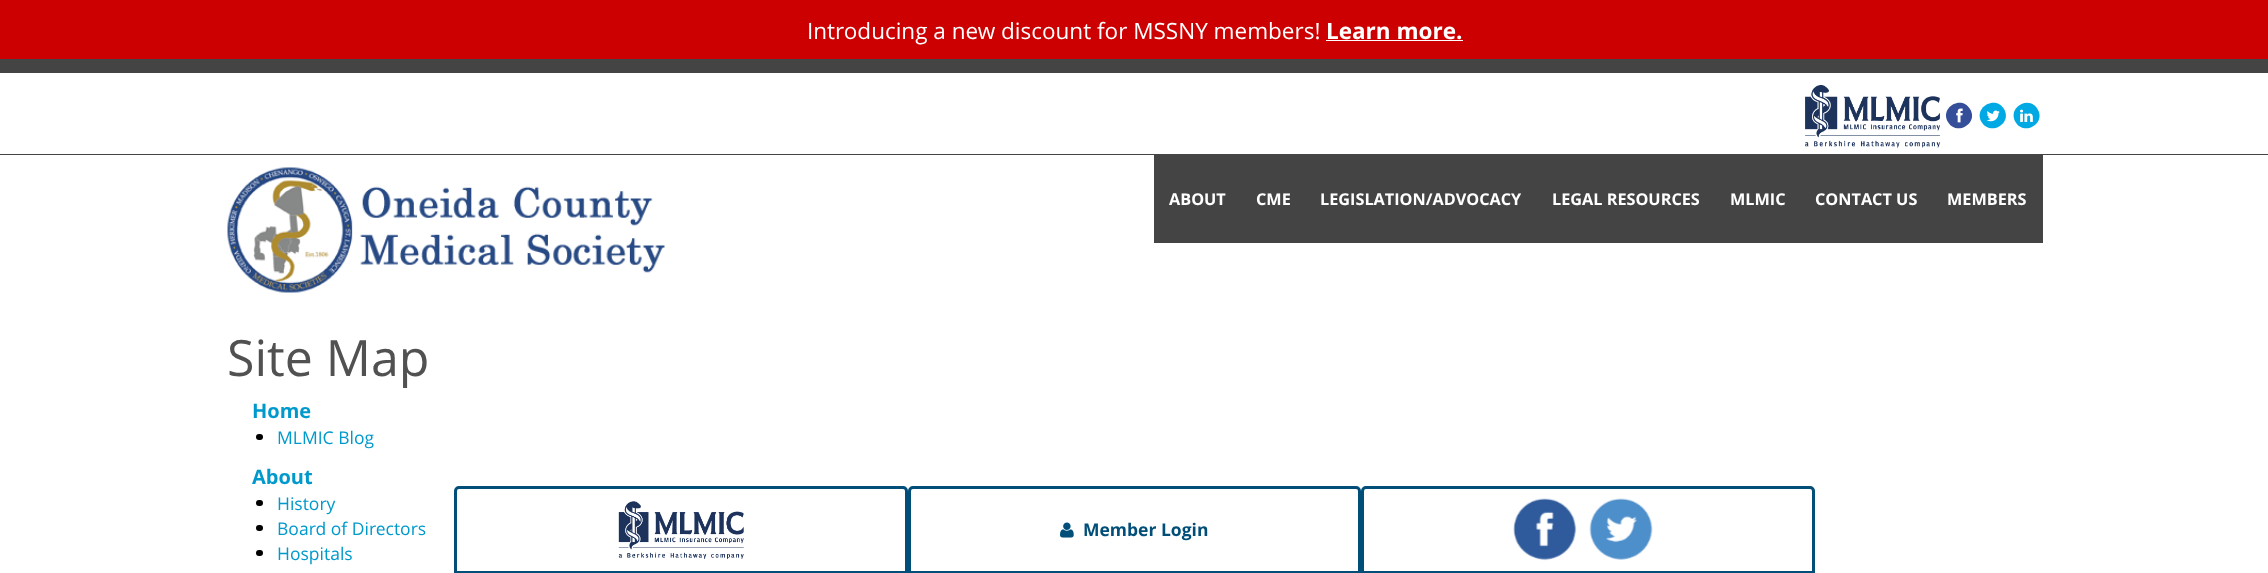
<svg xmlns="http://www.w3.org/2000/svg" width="2268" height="573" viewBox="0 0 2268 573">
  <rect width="100%" height="100%" fill="#fff"/>
  <path d="M0 0h2268v59H0z" fill="#c00"/>
  <path d="M1326 40h137v1H1326z" fill="#fff"/>
  <path d="M0 154h2268v1H0z" fill="#444"/>
  <path d="M0 59h2268v14H0z" fill="#444"/>
  <image x="1805" y="85" width="135" height="63" href="img/1.png"/>
  <path d="M1970 109C1979 123.5 1956.5 136.5 1948 122C1939.5 107.5 1961.5 94.5 1970 109Z" fill="#354e99"/>
  <image x="1956" y="108" width="7" height="15" href="img/2.png"/>
  <path d="M2004 109C2012.5 123.5 1990.5 136.5 1981.5 122C1973 107.5 1995.5 94.5 2004 109Z" fill="#00a9e3"/>
  <image x="1986" y="110" width="14" height="12" href="img/3.png"/>
  <path d="M2037.5 109C2046.5 123.5 2024 136.5 2015.5 122C2007 107.5 2029 94.5 2037.5 109Z" fill="#00a9e3"/>
  <image x="2020" y="109" width="13" height="13" href="img/4.png"/>
  <image x="227" y="167" width="438" height="126" href="img/5.png"/>
  <path d="M1154 155h889v88H1154z" fill="#444"/>
  <rect x="256" y="434" width="7" height="6" rx="3" fill="#000"/>
  <rect x="256" y="500" width="7" height="6" rx="3" fill="#000"/>
  <rect x="256" y="525" width="7" height="6" rx="3" fill="#000"/>
  <rect x="256" y="550" width="7" height="6" rx="3" fill="#000"/>
  <path d="M459 487.5H903C905 487.5 906.5 489 906.5 491V572.5H455.5V491C455.5 489 457 487.5 459 487.5Z" fill="none" stroke="#014f79" stroke-width="3"/>
  <image x="618" y="501" width="126" height="58" href="img/6.png"/>
  <path d="M913 487.5H1356C1358 487.5 1359.5 489 1359.5 491V572.5H909.5V491C909.5 489 911 487.5 913 487.5Z" fill="none" stroke="#014f79" stroke-width="3"/>
  <image x="1060" y="522" width="14" height="16" href="img/7.png"/>
  <path d="M1366 487.5H1810C1812 487.5 1813.5 489 1813.5 491V572.5H1362.5V491C1362.5 489 1364 487.5 1366 487.5Z" fill="none" stroke="#014f79" stroke-width="3"/>
  <image x="1513" y="498" width="64" height="63" href="img/8.png"/>
  <image x="1589" y="498" width="64" height="62" href="img/9.png"/>
  <text x="807" y="39" font-family="Open Sans" font-size="22.5" fill="#fff">Introducing a new discount for MSSNY members!</text>
  <text x="1326" y="39" font-family="Open Sans" font-size="22.5" font-weight="bold" fill="#fff">Learn more.</text>
  <g font-family="Open Sans" font-size="16.25" font-weight="bold" fill="#fff">
    <text x="1169" y="205">ABOUT</text>
    <text x="1256" y="205">CME</text>
    <text x="1320" y="205">LEGISLATION/ADVOCACY</text>
    <text x="1552" y="205">LEGAL RESOURCES</text>
    <text x="1730" y="205">MLMIC</text>
    <text x="1815" y="205">CONTACT US</text>
    <text x="1947" y="205">MEMBERS</text>
  </g>
  <text x="227" y="376" font-family="Open Sans" font-size="50" fill="#515151">Site Map</text>
  <text x="252" y="418" font-family="Open Sans" font-size="20" font-weight="bold" fill="#09c">Home</text>
  <text x="277" y="444" font-family="Open Sans" font-size="17.5" fill="#09c">MLMIC Blog</text>
  <text x="252" y="484" font-family="Open Sans" font-size="20" font-weight="bold" fill="#09c">About</text>
  <g font-family="Open Sans" font-size="17.5" fill="#09c">
    <text x="277" y="510">History</text>
    <text x="277" y="535">Board of Directors</text>
    <text x="277" y="560">Hospitals</text>
  </g>
  <text x="1083" y="536" font-family="Open Sans" font-size="17.5" font-weight="bold" fill="#014f79">Member Login</text>
</svg>
